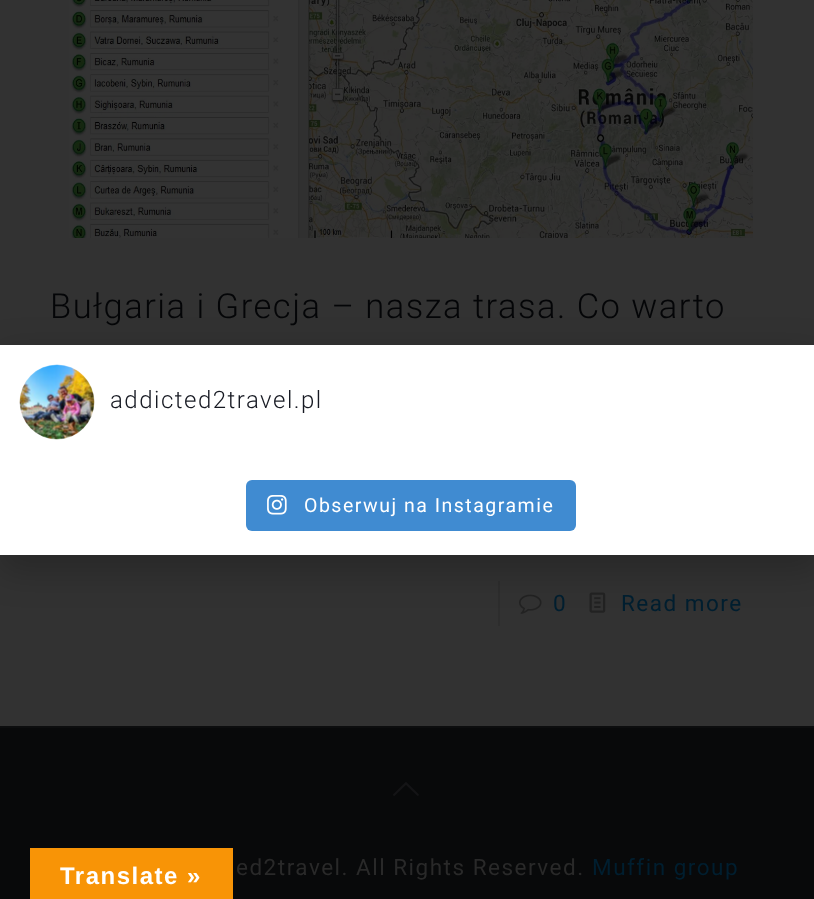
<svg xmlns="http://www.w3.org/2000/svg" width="814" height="899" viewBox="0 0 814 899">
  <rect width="100%" height="100%" fill="#323232"/>
  <image x="69" y="0" width="684" height="238" href="img/1.png"/>
  <path d="M498 581h2v45H498z" fill="#2d2d2d"/>
  <image x="519" y="594" width="23" height="20" href="img/2.png"/>
  <image x="589" y="592" width="17" height="21" href="img/3.png"/>
  <path d="M0 728h814v171H0z" fill="#08090a"/>
  <path d="M0 726h814v2H0z" fill="#0c0d0e"/>
  <image x="393" y="782" width="26" height="14" href="img/4.png"/>
  <path d="M-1 353h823v219H-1z" fill="#00000033" filter="blur(17px)"/>
  <path d="M0 345h814v210H0z" fill="#fff"/>
  <image x="19" y="364" width="76" height="76" href="img/5.png"/>
  <rect x="246" y="480" width="330" height="51" rx="6" fill="#408bd1"/>
  <image x="267" y="495" width="20" height="20" href="img/6.png"/>
  <path d="M30 848h203v51H30z" fill="#f89406"/>
  <text x="50" y="318" font-family="Roboto" font-size="34.5" font-weight="300" letter-spacing="1.5" fill="#040507">Bułgaria i Grecja – nasza trasa. Co warto</text>
  <g font-family="Roboto" font-size="22.5" letter-spacing="1.5" fill="#001e2f">
    <text x="553" y="611">0</text>
    <text x="621" y="611">Read more</text>
  </g>
  <text x="236" y="875" font-family="Roboto" font-size="22.5" letter-spacing="1.5" fill="#292929">ed2travel. All Rights Reserved.</text>
  <text x="592" y="875" font-family="Roboto" font-size="22.5" letter-spacing="1.5" fill="#001e2f">Muffin group</text>
  <text x="110" y="408" font-family="Roboto" font-size="24" font-weight="300" letter-spacing="1.5" fill="#161922">addicted2travel.pl</text>
  <text x="304" y="512" font-family="Roboto" font-size="19.5" letter-spacing="1.5" fill="#fff">Obserwuj na Instagramie</text>
  <text x="60" y="884" font-family="Liberation Sans" font-size="24" font-weight="bold" letter-spacing="1.5" fill="#fff">Translate »</text>
</svg>
